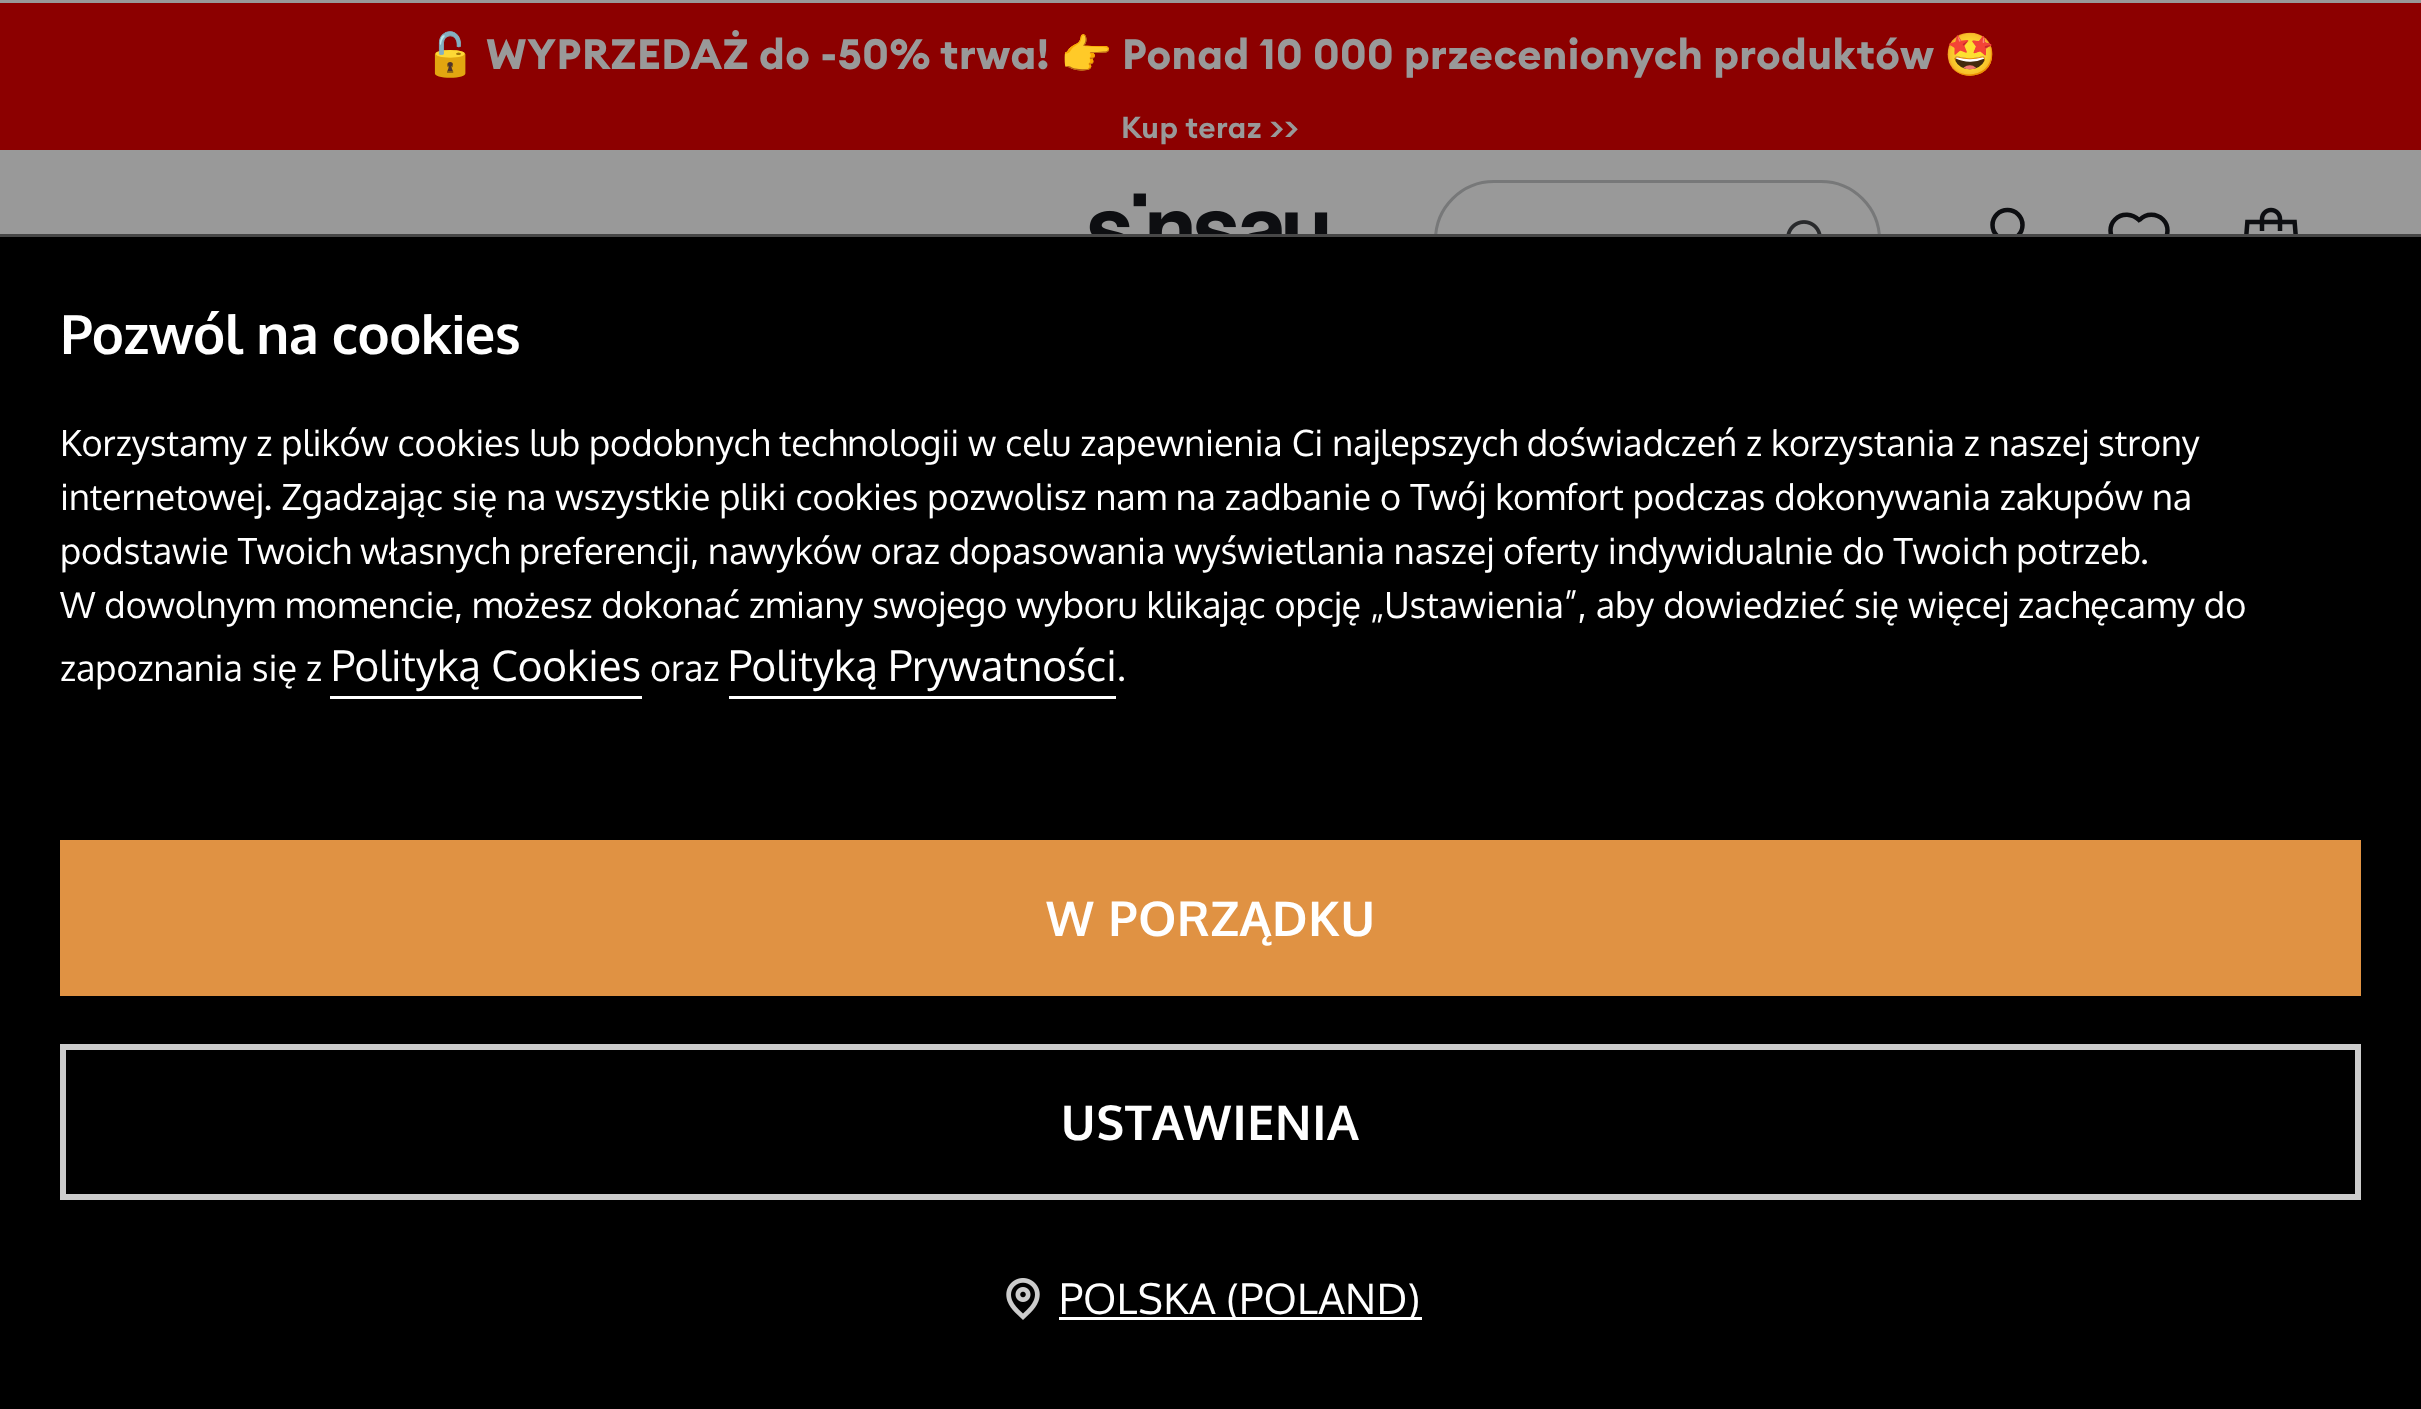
<svg xmlns="http://www.w3.org/2000/svg" width="2421" height="1409" viewBox="0 0 2421 1409">
  <rect width="100%" height="100%" fill="#999"/>
  <path d="M0 3h2421v147H0z" fill="#8c0000"/>
  <image x="1089" y="193" width="239" height="41" href="img/1.png"/>
  <rect x="1435.5" y="181.5" width="444" height="117" rx="58.5" fill="none" stroke="#777879" stroke-width="3"/>
  <image x="1786" y="220" width="36" height="14" href="img/2.png"/>
  <circle cx="2007.5" cy="225" r="15" fill="none" stroke="#0d0e11" stroke-width="4.5"/>
  <path d="M2115 219.5C2122 212.5 2132.5 213.5 2139 220L2140 219.5C2146 213 2156.5 213 2163 219.5C2169 225.5 2169 235.5 2163 241.5L2139 265.5L2115 241.5C2109 235.5 2109 225.5 2115 219.5Z" fill="none" stroke="#0d0e11" stroke-width="4.5"/>
  <image x="2244" y="207" width="54" height="27" href="img/3.png"/>
  <path d="M0 237h2421v1172H0z" fill="#000"/>
  <path d="M0 234h2421v3H0z" fill="#474747"/>
  <path d="M330 696h312v3H330z" fill="#fff"/>
  <path d="M729 696h387v3H729z" fill="#fff"/>
  <path d="M60 840h2301v156H60z" fill="#e09243"/>
  <path d="M63 1047h2295v150H63z" fill="none" stroke="#ccc" stroke-width="6"/>
  <image x="1006" y="1278" width="34" height="42" href="img/4.png"/>
  <path d="M1059 1317h363v3H1059z" fill="#fff"/>
  <text x="424" y="69" font-family="Noto Color Emoji" font-size="42" font-weight="bold" letter-spacing="0.45" fill="#999">🔓</text>
  <text x="486" y="69" font-family="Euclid" font-size="42" font-weight="bold" letter-spacing="0.45" fill="#999">WYPRZEDAŻ do -50% trwa!</text>
  <text x="1060" y="69" font-family="Noto Color Emoji" font-size="42" font-weight="bold" letter-spacing="0.45" fill="#999">👉</text>
  <text x="1122" y="69" font-family="Euclid" font-size="42" font-weight="bold" letter-spacing="0.45" fill="#999">Ponad 10 000 przecenionych produktów</text>
  <text x="1944" y="69" font-family="Noto Color Emoji" font-size="42" font-weight="bold" letter-spacing="0.45" fill="#999">🤩</text>
  <text x="1121" y="138" font-family="Euclid" font-size="30" font-weight="600" letter-spacing="0.45" fill="#999">Kup teraz &gt;&gt;</text>
  <text x="60" y="354" font-family="Oxygen" font-size="54" font-weight="bold" letter-spacing="-0.6" fill="#fff">Pozwól na cookies</text>
  <g font-family="Oxygen" font-size="36" fill="#fff">
    <text x="60" y="456">Korzystamy z plików cookies lub podobnych technologii w celu zapewnienia Ci najlepszych doświadczeń z korzystania z naszej strony</text>
    <text x="60" y="510">internetowej. Zgadzając się na wszystkie pliki cookies pozwolisz nam na zadbanie o Twój komfort podczas dokonywania zakupów na</text>
    <text x="60" y="564">podstawie Twoich własnych preferencji, nawyków oraz dopasowania wyświetlania naszej oferty indywidualnie do Twoich potrzeb.</text>
    <text x="60" y="618">W dowolnym momencie, możesz dokonać zmiany swojego wyboru klikając opcję „Ustawienia”, aby dowiedzieć się więcej zachęcamy do</text>
    <text x="60" y="681">zapoznania się z</text>
  </g>
  <text x="331" y="681" font-family="Oxygen" font-size="42" fill="#fff">Polityką Cookies</text>
  <text x="650" y="681" font-family="Oxygen" font-size="36" fill="#fff">oraz</text>
  <text x="728" y="681" font-family="Oxygen" font-size="42" fill="#fff">Polityką Prywatności</text>
  <text x="1117" y="681" font-family="Oxygen" font-size="36" fill="#fff">.</text>
  <g font-family="Oxygen" font-size="48" font-weight="bold" letter-spacing="0.75" fill="#fff">
    <text x="1046" y="936">W PORZĄDKU</text>
    <text x="1061" y="1140">USTAWIENIA</text>
  </g>
  <text x="1059" y="1314" font-family="Oxygen" font-size="42" letter-spacing="0.25" fill="#fff">POLSKA (POLAND)</text>
</svg>
